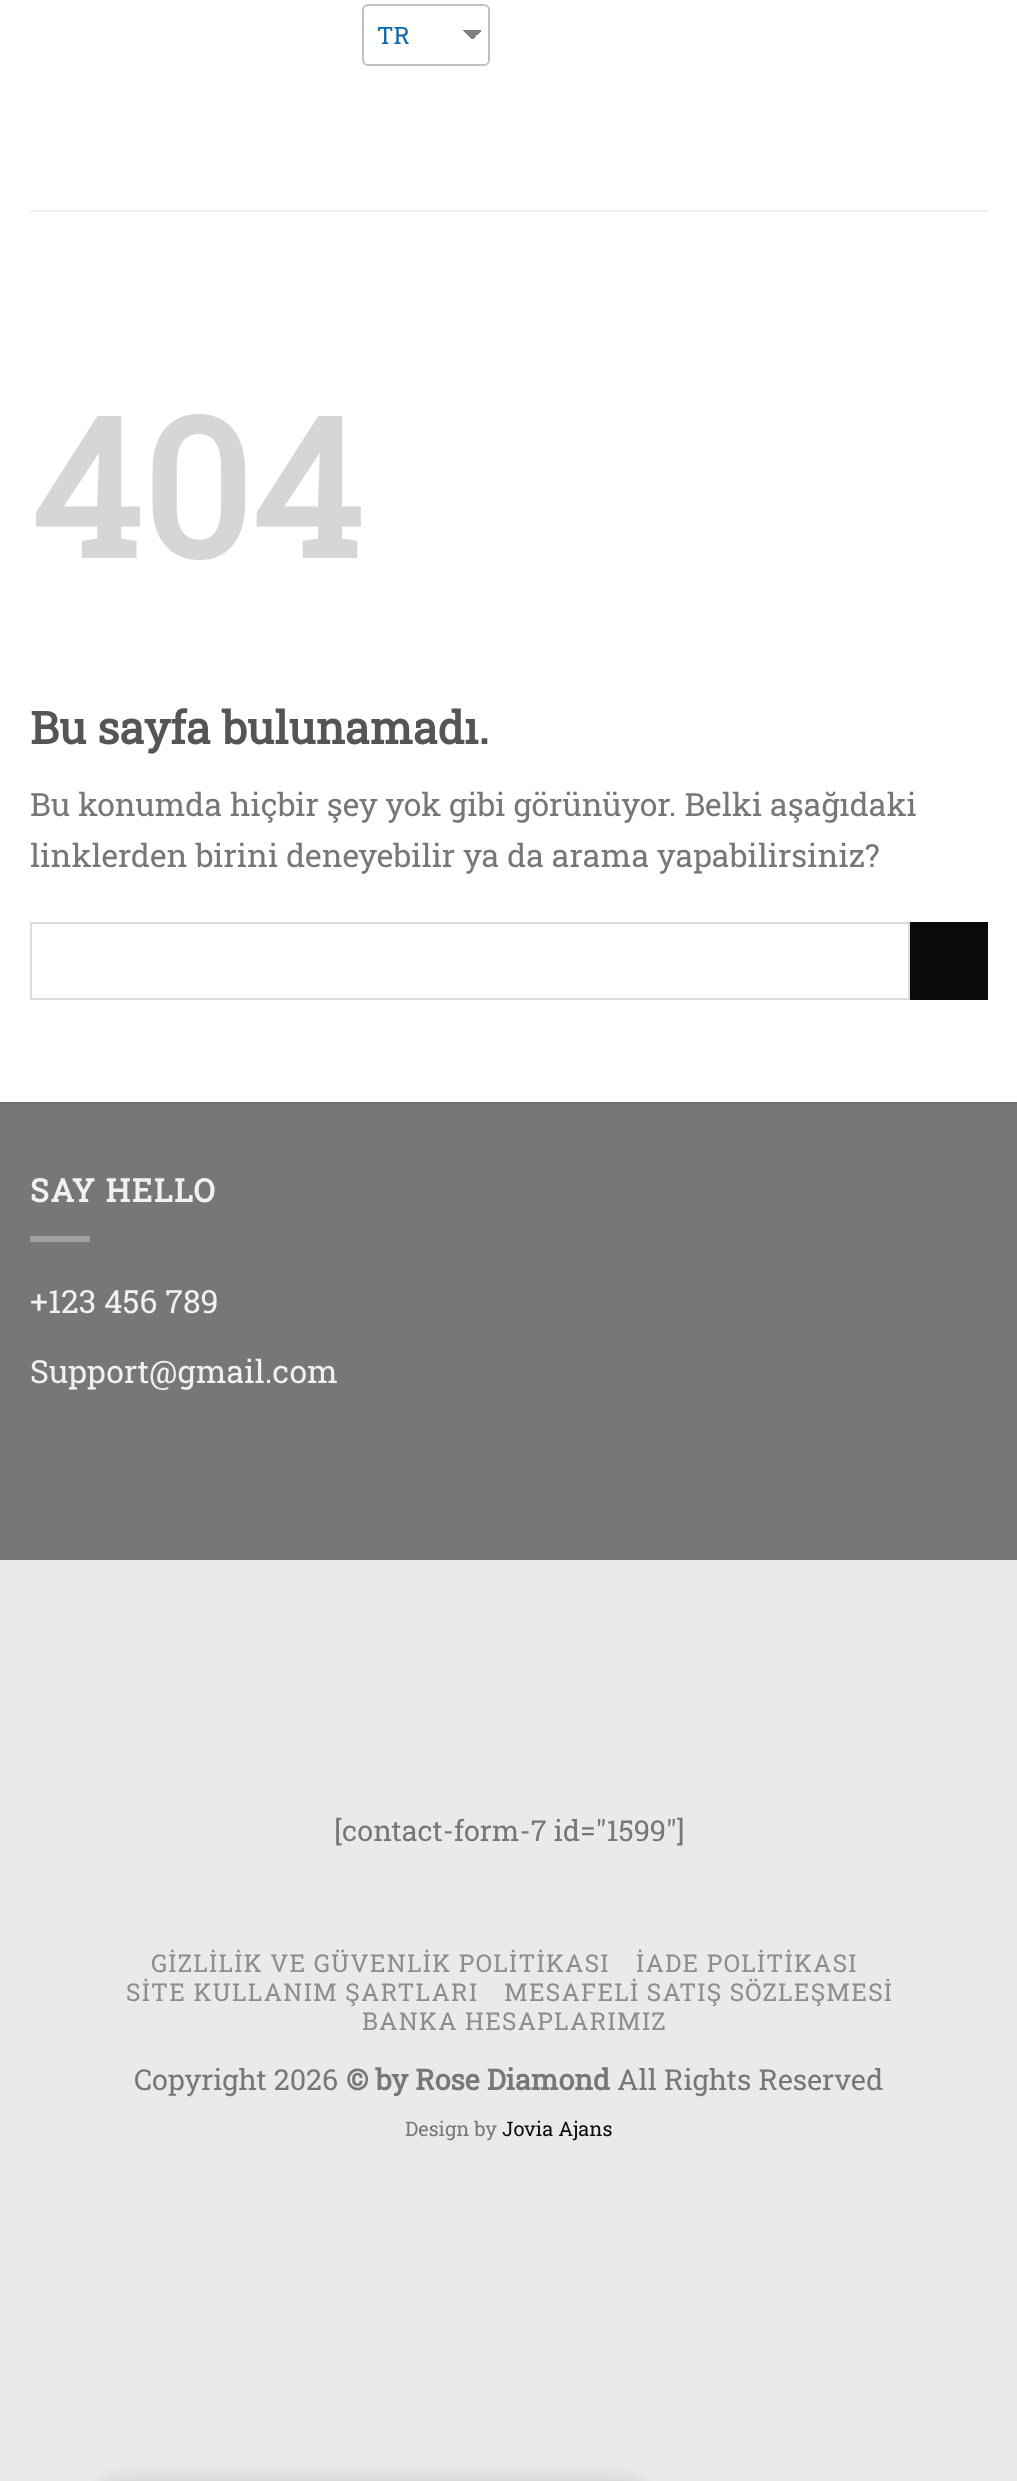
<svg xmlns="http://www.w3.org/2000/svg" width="1017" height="2481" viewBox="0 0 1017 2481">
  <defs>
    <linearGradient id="g1" gradientUnits="userSpaceOnUse" x1="472" y1="30" x2="482" y2="40"><stop offset="0.5" stop-color="#808080"/><stop offset="0.5" stop-color="#fff"/></linearGradient>
    <linearGradient id="g2" gradientUnits="userSpaceOnUse" x1="462" y1="40" x2="472" y2="30"><stop offset="0.5" stop-color="#fff"/><stop offset="0.5" stop-color="#808080"/></linearGradient>
  </defs>
  <rect width="100%" height="100%" fill="#eaeaea"/>
  <path d="M0 0h1017v1102H0z" fill="#fff"/>
  <path d="M472 30h10v9H472z" fill="url(#g1)"/>
  <path d="M462 30h10v9H462z" fill="url(#g2)"/>
  <rect x="363" y="5" width="126" height="60" rx="5" fill="none" stroke="#c1c1c1" stroke-width="2"/>
  <path d="M30 210h958v2H30z" fill="#f1f1f1"/>
  <path d="M31 923h878v76H31z" fill="none" stroke="#ddd" stroke-width="2"/>
  <path d="M910 922h78v78H910z" fill="#0a0a0a"/>
  <path d="M0 1104h1017v456H0z" fill="#777"/>
  <path d="M0 1102h1017v2H0z" fill="#717171"/>
  <path d="M30 1236h60v6H30z" fill="#a0a0a0"/>
  <rect x="100" y="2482" width="544" height="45" rx="16" fill="#00000026" filter="blur(10px)"/>
  <text x="377" y="44" font-family="Roboto Slab" font-size="24" fill="#0769ad">TR</text>
  <text x="30" y="558" font-family="Roboto Slab" font-size="192" font-weight="bold" fill="#d6d6d6">404</text>
  <text x="30" y="744" font-family="Roboto Slab" font-size="44.75" font-weight="bold" fill="#555">Bu sayfa bulunamadı.</text>
  <g font-family="Roboto Slab" font-size="32" fill="#777">
    <text x="30" y="816">Bu konumda hiçbir şey yok gibi görünüyor. Belki aşağıdaki</text>
    <text x="30" y="867">linklerden birini deneyebilir ya da arama yapabilirsiniz?</text>
  </g>
  <text x="30" y="1202" font-family="Roboto Slab" font-size="32" font-weight="bold" letter-spacing="1.5" fill="#f1f1f1">SAY HELLO</text>
  <g font-family="Roboto Slab" font-size="32" fill="#f1f1f1">
    <text x="30" y="1313">+123 456 789</text>
    <text x="30" y="1383">Support@gmail.com</text>
  </g>
  <text x="334" y="1841" font-family="Roboto Slab" font-size="28.75" fill="#777">[contact-form-7 id="1599"]</text>
  <g font-family="Roboto Slab" font-size="24.5" letter-spacing="1.25" fill="#8d8d8d">
    <text x="151" y="1972">GİZLİLİK VE GÜVENLİK POLİTİKASI</text>
    <text x="636" y="1972">İADE POLİTİKASI</text>
    <text x="126" y="2001">SİTE KULLANIM ŞARTLARI</text>
    <text x="504" y="2001">MESAFELİ SATIŞ SÖZLEŞMESİ</text>
    <text x="362" y="2030">BANKA HESAPLARIMIZ</text>
  </g>
  <text x="134" y="2090" font-family="Roboto Slab" font-size="28.75" fill="#777">Copyright 2026</text>
  <text x="346" y="2090" font-family="Roboto Slab" font-size="28.75" font-weight="bold" fill="#777">© by Rose Diamond</text>
  <text x="617" y="2090" font-family="Roboto Slab" font-size="28.75" fill="#777">All Rights Reserved</text>
  <text x="405" y="2136" font-family="Roboto Slab" font-size="20" fill="#777">Design by</text>
  <text x="502" y="2136" font-family="Roboto Slab" font-size="20" fill="#0a0a0a">Jovia Ajans</text>
</svg>
